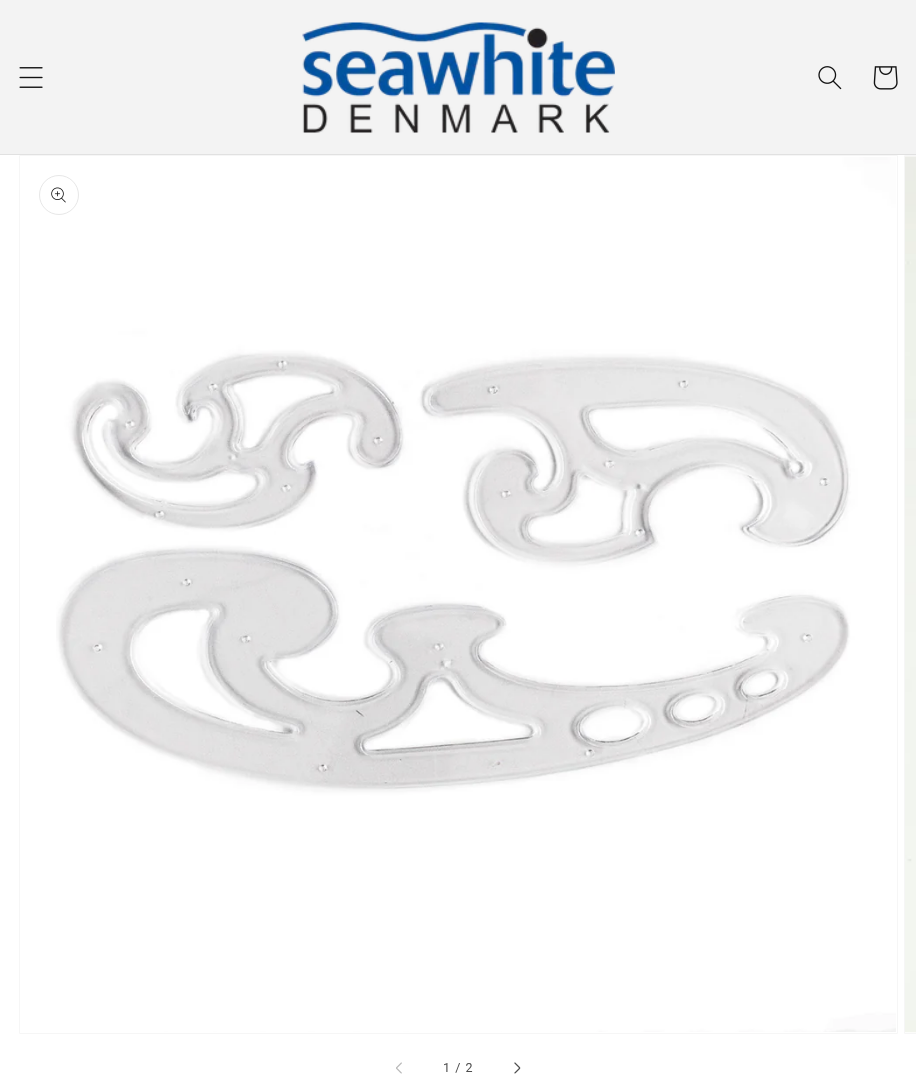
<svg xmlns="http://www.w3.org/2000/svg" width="916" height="1081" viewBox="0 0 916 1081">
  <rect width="100%" height="100%" fill="#fff"/>
  <path d="M0 0h916v154H0z" fill="#f3f3f3"/>
  <path d="M0 154h916v1H0z" fill="#e1e1e1"/>
  <image x="19" y="67" width="24" height="21" href="img/1.png"/>
  <image x="302" y="22" width="313" height="111" href="img/2.png"/>
  <image x="818" y="66" width="24" height="24" href="img/3.png"/>
  <image x="873" y="66" width="25" height="24" href="img/4.png"/>
  <path d="M19.5 155.5h878v878H19.5z" fill="none" stroke="#f6f6f6"/>
  <image x="56" y="157" width="840" height="875" href="img/5.png"/>
  <circle cx="59" cy="195" r="19.5" fill="none" stroke="#e7e7e7"/>
  <image x="51" y="187" width="15" height="16" href="img/6.png"/>
  <path d="M904.5 155.5h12v878H904.5z" fill="none" stroke="#f6f6f6"/>
  <image x="905" y="156" width="11" height="877" href="img/7.png"/>
  <image x="396" y="1062" width="6" height="12" href="img/8.png"/>
  <image x="514" y="1062" width="7" height="12" href="img/9.png"/>
  <text x="443" y="1072" font-family="Roboto" font-size="12.5" letter-spacing="1" fill="#4d4d4d">1 / 2</text>
</svg>
